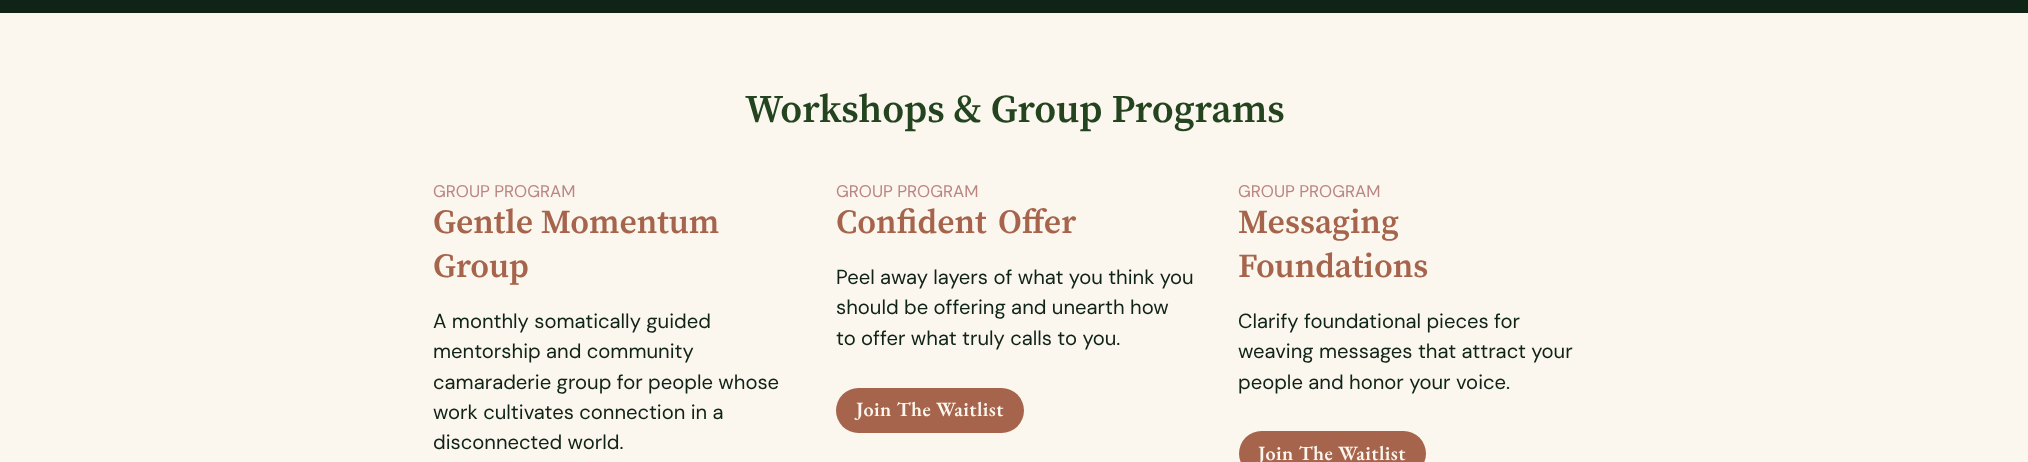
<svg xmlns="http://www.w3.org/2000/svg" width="2028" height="462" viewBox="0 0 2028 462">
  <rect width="100%" height="100%" fill="#0f2316"/>
  <path d="M0 13h2028v449H0z" fill="#fbf6ee"/>
  <rect x="836" y="388" width="188" height="45" rx="22.5" fill="#a5644b"/>
  <rect x="1239" y="431" width="187" height="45" rx="22.5" fill="#a5644b"/>
  <text x="745" y="122" font-family="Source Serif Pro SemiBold" font-size="39.4" font-weight="600" fill="#23441f">Workshops &amp; Group Programs</text>
  <text x="433" y="197" font-family="DM Sans" font-size="16.9" fill="#bb8581">GROUP PROGRAM</text>
  <g font-family="Source Serif Pro SemiBold" font-size="33.75" font-weight="600" fill="#a5644b">
    <text x="433" y="233">Gentle Momentum</text>
    <text x="433" y="277">Group</text>
  </g>
  <g font-family="DM Sans" font-size="20.25" fill="#0f2316">
    <text x="433" y="328">A monthly somatically guided</text>
    <text x="433" y="358">mentorship and community</text>
    <text x="433" y="389">camaraderie group for people whose</text>
    <text x="433" y="419">work cultivates connection in a</text>
    <text x="433" y="449">disconnected world.</text>
  </g>
  <text x="836" y="197" font-family="DM Sans" font-size="16.9" fill="#bb8581">GROUP PROGRAM</text>
  <text x="836" y="233" word-spacing="4" font-family="Source Serif Pro SemiBold" font-size="33.75" font-weight="600" fill="#a5644b">Confident Offer</text>
  <g font-family="DM Sans" font-size="20.25" fill="#0f2316">
    <text x="836" y="284">Peel away layers of what you think you</text>
    <text x="836" y="314">should be offering and unearth how</text>
    <text x="836" y="345">to offer what truly calls to you.</text>
  </g>
  <text x="856" y="416" font-family="EB Garamond" font-size="20.25" font-weight="600" letter-spacing="0.4" fill="#fbf6ee">Join The Waitlist</text>
  <text x="1238" y="197" font-family="DM Sans" font-size="16.9" fill="#bb8581">GROUP PROGRAM</text>
  <g font-family="Source Serif Pro SemiBold" font-size="33.75" font-weight="600" fill="#a5644b">
    <text x="1238" y="233">Messaging</text>
    <text x="1238" y="277">Foundations</text>
  </g>
  <g font-family="DM Sans" font-size="20.25" fill="#0f2316">
    <text x="1238" y="328">Clarify foundational pieces for</text>
    <text x="1238" y="358">weaving messages that attract your</text>
    <text x="1238" y="389">people and honor your voice.</text>
  </g>
  <text x="1258" y="460" font-family="EB Garamond" font-size="20.25" font-weight="600" letter-spacing="0.4" fill="#fbf6ee">Join The Waitlist</text>
</svg>
